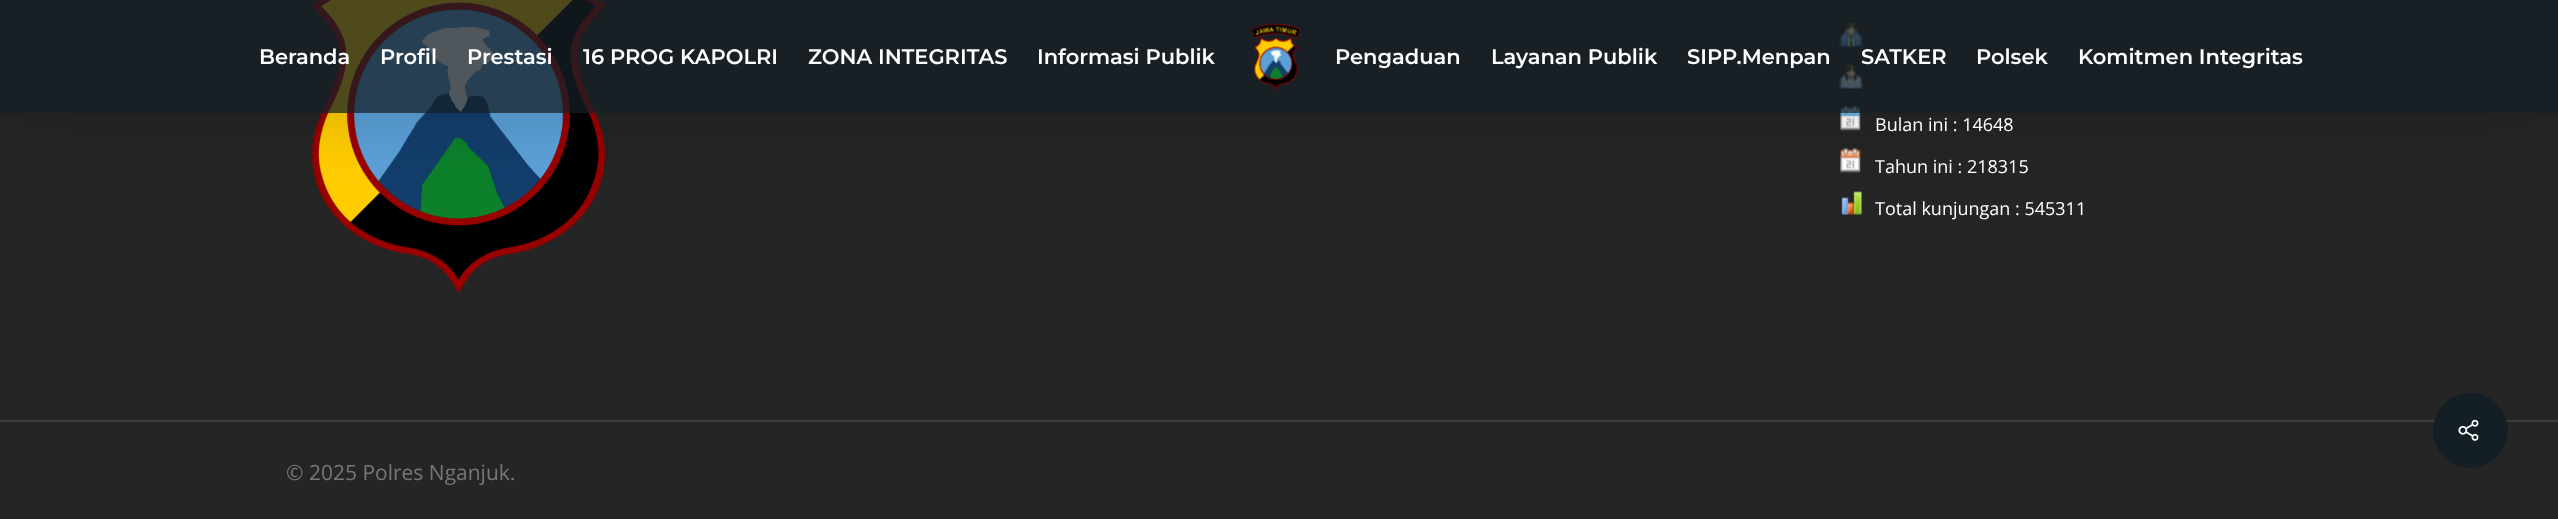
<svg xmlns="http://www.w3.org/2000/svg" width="2558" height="519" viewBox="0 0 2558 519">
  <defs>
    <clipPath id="clip1"><path d="M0 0H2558V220H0ZM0 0H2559V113H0Z" clip-rule="evenodd"/></clipPath>
  </defs>
  <rect width="100%" height="100%" fill="#252525"/>
  <image x="310" y="0" width="297" height="294" href="img/2.png"/>
  <image x="1839" y="22" width="24" height="25" href="img/3.png"/>
  <image x="1839" y="64" width="24" height="25" href="img/4.png"/>
  <image x="1840" y="106" width="21" height="25" href="img/5.png"/>
  <image x="1840" y="148" width="21" height="25" href="img/6.png"/>
  <image x="1841" y="191" width="21" height="24" href="img/7.png"/>
  <g clip-path="url(#clip1)">
    <path d="M0 5h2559v112H0z" fill="#00000026" filter="blur(34px)"/>
  </g>
  <path d="M0 0h2558v113H0z" fill="#141f25bf"/>
  <image x="1251" y="23" width="50" height="67" href="img/1.png"/>
  <path d="M0 420h2558v2H0z" fill="#3b3b3b"/>
  <circle cx="2470.5" cy="430.5" r="37.5" fill="#141f25"/>
  <image x="2458" y="419" width="21" height="22" href="img/8.png"/>
  <g font-family="Montserrat" font-size="21" font-weight="100" fill="#fff">
    <text x="259" y="64">Beranda</text>
    <text x="380" y="64">Profil</text>
    <text x="467" y="64">Prestasi</text>
    <text x="583" y="64">16 PROG KAPOLRI</text>
    <text x="808" y="64">ZONA INTEGRITAS</text>
    <text x="1037" y="64">Informasi Publik</text>
    <text x="1335" y="64">Pengaduan</text>
    <text x="1491" y="64">Layanan Publik</text>
    <text x="1687" y="64">SIPP.Menpan</text>
    <text x="1861" y="64">SATKER</text>
    <text x="1976" y="64">Polsek</text>
    <text x="2078" y="64">Komitmen Integritas</text>
  </g>
  <g font-family="Open Sans" font-size="18" fill="#fff">
    <text x="1875" y="131">Bulan ini : 14648</text>
    <text x="1875" y="173">Tahun ini : 218315</text>
    <text x="1875" y="215">Total kunjungan : 545311</text>
  </g>
  <text x="286" y="480" font-family="Open Sans" font-size="21" fill="#777">© 2025 Polres Nganjuk.</text>
</svg>
